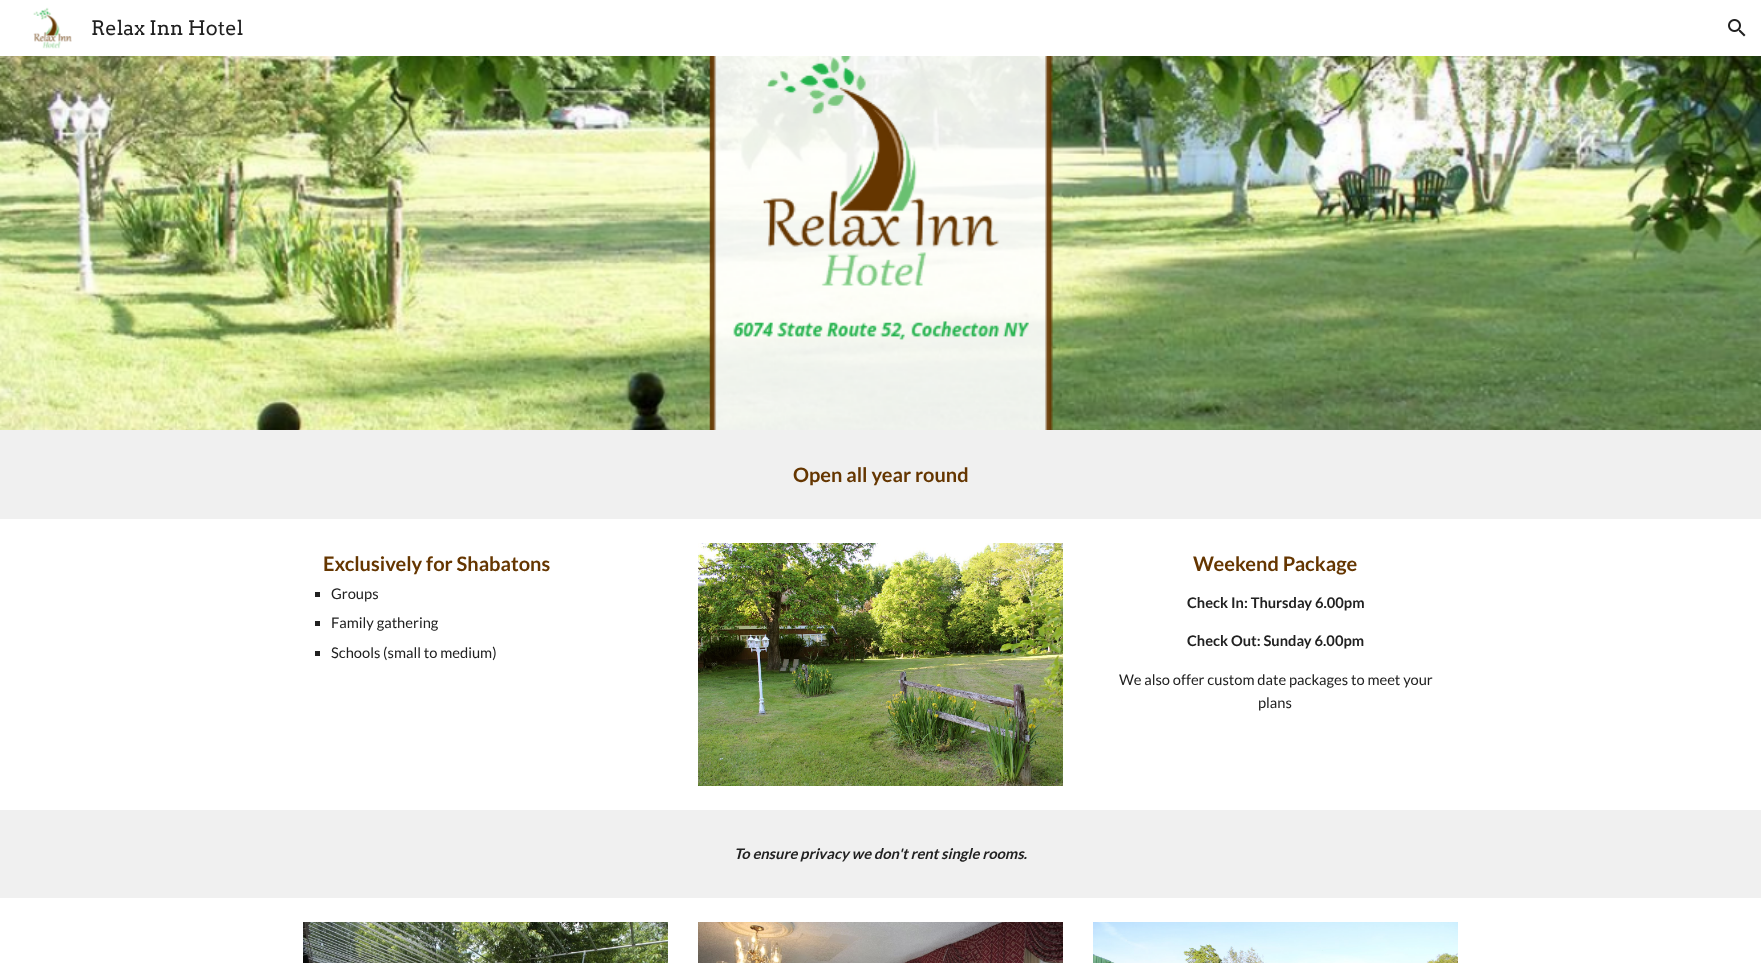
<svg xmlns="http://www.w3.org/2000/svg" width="1761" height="963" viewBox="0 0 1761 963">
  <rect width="100%" height="100%" fill="#fff"/>
  <image x="33" y="7" width="39" height="42" href="img/1.png"/>
  <image x="1728" y="19" width="18" height="18" href="img/2.png"/>
  <image x="0" y="56" width="1761" height="374" href="img/3.png"/>
  <path d="M0 430h1761v89H0z" fill="#f0f0f0"/>
  <path d="M315 592h5v5H315z" fill="#212121"/>
  <path d="M315 621h5v5H315z" fill="#212121"/>
  <path d="M315 651h5v5H315z" fill="#212121"/>
  <image x="698" y="543" width="365" height="243" href="img/4.png"/>
  <path d="M0 810h1761v88H0z" fill="#f0f0f0"/>
  <image x="303" y="922" width="365" height="41" href="img/5.png"/>
  <image x="698" y="922" width="365" height="41" href="img/6.png"/>
  <image x="1093" y="922" width="365" height="41" href="img/7.png"/>
  <text x="91" y="35" font-family="Arvo" font-size="20" fill="#212121">Relax Inn Hotel</text>
  <g font-family="Lato" font-size="20" font-weight="bold" fill="#653600">
    <text x="793" y="482">Open all year round</text>
    <text x="323" y="571">Exclusively for Shabatons</text>
  </g>
  <g font-family="Lato" font-size="14.7" fill="#212121">
    <text x="331" y="599">Groups</text>
    <text x="331" y="628">Family gathering</text>
    <text x="331" y="658">Schools (small to medium)</text>
  </g>
  <text x="1193" y="571" font-family="Lato" font-size="20" font-weight="bold" fill="#653600">Weekend Package</text>
  <g font-family="Lato" font-size="14.7" font-weight="bold" fill="#212121">
    <text x="1187" y="608">Check In: Thursday 6.00pm</text>
    <text x="1187" y="646">Check Out: Sunday 6.00pm</text>
  </g>
  <g font-family="Lato" font-size="14.7" fill="#212121">
    <text x="1119" y="685">We also offer custom date packages to meet your</text>
    <text x="1258" y="708">plans</text>
  </g>
  <text x="734" y="859" font-family="Lato" font-size="14.7" font-weight="bold" font-style="italic" fill="#212121">To ensure privacy we don't rent single rooms.</text>
</svg>
